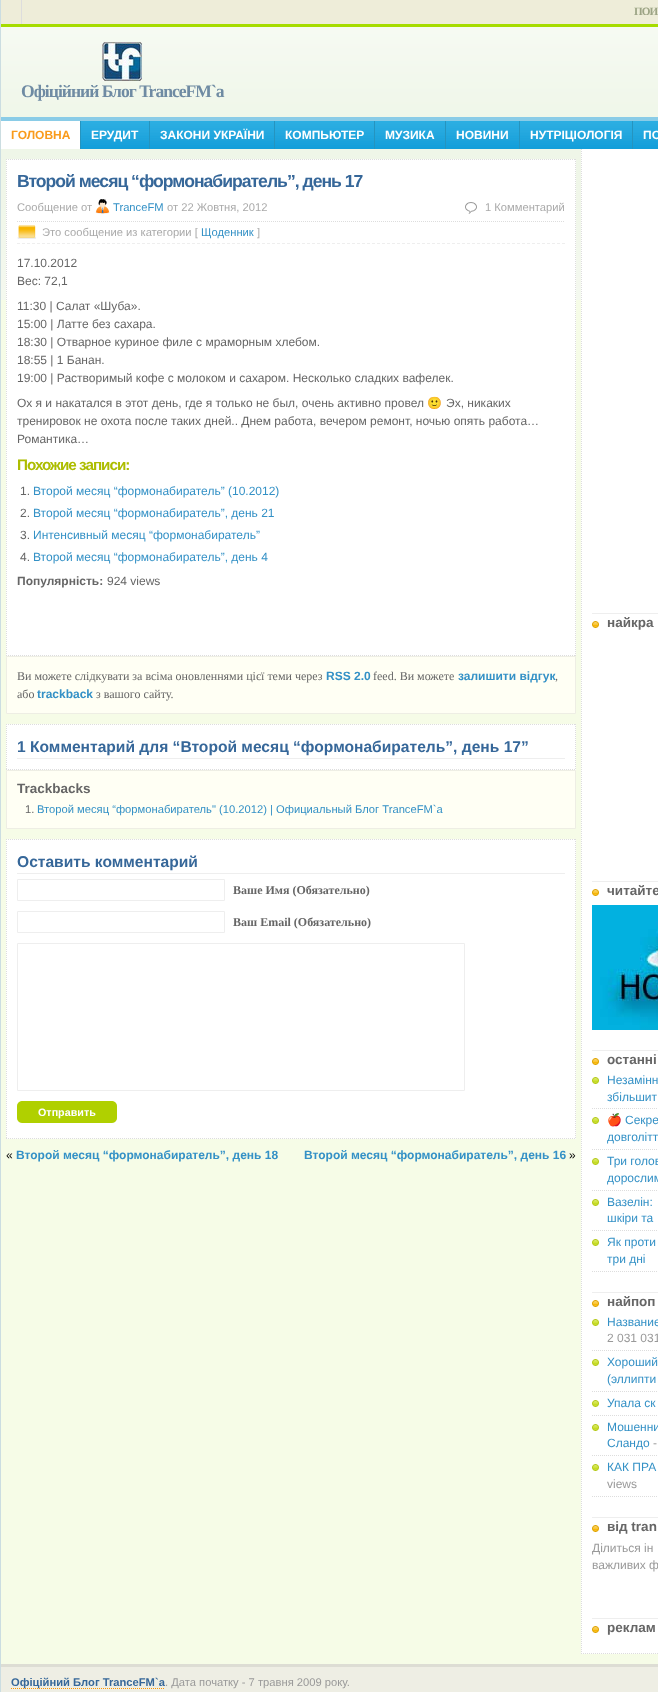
<svg xmlns="http://www.w3.org/2000/svg" width="658" height="1692" viewBox="0 0 658 1692">
  <rect width="100%" height="100%" fill="#f6fce7"/>
  <image x="1" y="27" width="657" height="273" href="img/1.png"/>
  <path d="M0 0h1v1692H0z" fill="#cbdde1"/>
  <path d="M1 0h657v24H1z" fill="#eeedd9"/>
  <path d="M1 24h657v3H1z" fill="#a6dc00"/>
  <path d="M21 0h1v24H21z" fill="#ddd"/>
  <image x="102" y="42" width="40" height="39" href="img/2.png"/>
  <image x="81" y="121" width="577" height="28" href="img/3.png"/>
  <path d="M1 117h657v4H1z" fill="#8acce7"/>
  <path d="M80 121h1v28H80z" fill="#2594bf"/>
  <path d="M1 121h79v28H1z" fill="#fff"/>
  <path d="M149 121h1v28H149z" fill="#2594bf"/>
  <path d="M274 121h1v28H274z" fill="#2594bf"/>
  <path d="M374 121h1v28H374z" fill="#2594bf"/>
  <path d="M445 121h1v28H445z" fill="#2594bf"/>
  <path d="M519 121h1v28H519z" fill="#2594bf"/>
  <path d="M632 121h1v28H632z" fill="#2594bf"/>
  <path d="M6 159h570v497H6z" fill="#fff"/>
  <path d="M6 159.5H576" fill="none" stroke="#ddd" stroke-dasharray="1 1"/>
  <path d="M575.5 159V656" fill="none" stroke="#ddd" stroke-dasharray="1 1"/>
  <path d="M6 655.5H576" fill="none" stroke="#ddd" stroke-dasharray="1 1"/>
  <path d="M6.5 159V656" fill="none" stroke="#ddd" stroke-dasharray="1 1"/>
  <path d="M17 221.5H565" fill="none" stroke="#ddd" stroke-dasharray="1 1"/>
  <image x="95" y="199" width="15" height="15" href="img/4.png"/>
  <image x="465" y="202" width="12" height="12" href="img/5.png"/>
  <image x="17" y="225" width="19" height="14" href="img/6.png"/>
  <path d="M17 243.5H565" fill="none" stroke="#eee" stroke-dasharray="3 2"/>
  <path d="M6.5 656.5h569v57H6.5z" fill="#fffff4" stroke="#eeeee4"/>
  <path d="M6 724h570v46H6z" fill="#fff"/>
  <path d="M6 724.5H576" fill="none" stroke="#ddd" stroke-dasharray="1 1"/>
  <path d="M575.5 724V770" fill="none" stroke="#ddd" stroke-dasharray="1 1"/>
  <path d="M6 769.5H576" fill="none" stroke="#ddd" stroke-dasharray="1 1"/>
  <path d="M6.5 724V770" fill="none" stroke="#ddd" stroke-dasharray="1 1"/>
  <path d="M17 758h548v1H17z" fill="#eee"/>
  <path d="M6.5 770.5h569v58H6.5z" fill="#fffff4" stroke="#eeeee4"/>
  <path d="M6 839h570v300H6z" fill="#fff"/>
  <path d="M6 839.5H576" fill="none" stroke="#ddd" stroke-dasharray="1 1"/>
  <path d="M575.5 839V1139" fill="none" stroke="#ddd" stroke-dasharray="1 1"/>
  <path d="M6 1138.5H576" fill="none" stroke="#ddd" stroke-dasharray="1 1"/>
  <path d="M6.5 839V1139" fill="none" stroke="#ddd" stroke-dasharray="1 1"/>
  <path d="M17 873h548v1H17z" fill="#eee"/>
  <path d="M17.5 879.5h207v21H17.5z" fill="none" stroke="#eee"/>
  <path d="M17.5 911.5h207v21H17.5z" fill="none" stroke="#eee"/>
  <path d="M17.5 943.5h447v147H17.5z" fill="none" stroke="#eee"/>
  <image x="17" y="1101" width="100" height="22" href="img/7.png"/>
  <path d="M581 149h77v1505H581z" fill="#fff"/>
  <path d="M581 1653.5H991" fill="none" stroke="#ddd" stroke-dasharray="1 1"/>
  <path d="M581.5 149V1654" fill="none" stroke="#ddd" stroke-dasharray="1 1"/>
  <image x="592" y="621" width="7" height="7" href="img/8.png"/>
  <path d="M592 613h66v1H592z" fill="#eee"/>
  <image x="592" y="889" width="7" height="7" href="img/8.png"/>
  <path d="M592 881h66v1H592z" fill="#eee"/>
  <image x="592" y="905" width="66" height="125" href="img/9.png"/>
  <image x="592" y="1058" width="7" height="7" href="img/8.png"/>
  <path d="M592 1050h66v1H592z" fill="#eee"/>
  <image x="592" y="1077" width="7" height="7" href="img/10.png"/>
  <path d="M592 1108.5H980" fill="none" stroke="#ddd" stroke-dasharray="1 1"/>
  <image x="592" y="1117" width="7" height="7" href="img/10.png"/>
  <path d="M592 1149.5H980" fill="none" stroke="#ddd" stroke-dasharray="1 1"/>
  <image x="592" y="1158" width="7" height="7" href="img/10.png"/>
  <path d="M592 1190.5H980" fill="none" stroke="#ddd" stroke-dasharray="1 1"/>
  <image x="592" y="1199" width="7" height="7" href="img/10.png"/>
  <path d="M592 1230.5H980" fill="none" stroke="#ddd" stroke-dasharray="1 1"/>
  <image x="592" y="1239" width="7" height="7" href="img/10.png"/>
  <path d="M592 1271.5H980" fill="none" stroke="#ddd" stroke-dasharray="1 1"/>
  <image x="592" y="1300" width="7" height="7" href="img/8.png"/>
  <path d="M592 1292h66v1H592z" fill="#eee"/>
  <image x="592" y="1319" width="7" height="7" href="img/10.png"/>
  <path d="M592 1350.5H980" fill="none" stroke="#ddd" stroke-dasharray="1 1"/>
  <image x="592" y="1359" width="7" height="7" href="img/10.png"/>
  <path d="M592 1391.5H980" fill="none" stroke="#ddd" stroke-dasharray="1 1"/>
  <image x="592" y="1400" width="7" height="7" href="img/10.png"/>
  <path d="M592 1415.5H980" fill="none" stroke="#ddd" stroke-dasharray="1 1"/>
  <image x="592" y="1424" width="7" height="7" href="img/10.png"/>
  <path d="M592 1455.5H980" fill="none" stroke="#ddd" stroke-dasharray="1 1"/>
  <image x="592" y="1464" width="7" height="7" href="img/10.png"/>
  <path d="M592 1496.5H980" fill="none" stroke="#ddd" stroke-dasharray="1 1"/>
  <image x="592" y="1525" width="7" height="7" href="img/8.png"/>
  <path d="M592 1517h66v1H592z" fill="#eee"/>
  <image x="592" y="1626" width="7" height="7" href="img/8.png"/>
  <path d="M592 1618h66v1H592z" fill="#eee"/>
  <path d="M1 1667h657v25H1z" fill="#eeeee4"/>
  <path d="M1 1664h657v3H1z" fill="#ddddd4"/>
  <path d="M11 1688.5H165" fill="none" stroke="#ff9600" stroke-dasharray="1 1"/>
  <text x="634" y="15" font-family="Liberation Serif" font-size="11.2" font-weight="bold" letter-spacing="-1" fill="#9ca485">ПОИ</text>
  <text x="21" y="97" font-family="Liberation Serif" font-size="17.6" font-weight="bold" letter-spacing="-1" fill="#6f8ba3">Офіційний Блог TranceFM`a</text>
  <text x="11" y="139" font-family="Liberation Sans" font-size="12" font-weight="bold" fill="#f99b1c">ГОЛОВНА</text>
  <g font-family="Liberation Sans" font-size="12" font-weight="bold" fill="#fff">
    <text x="91" y="139">ЕРУДИТ</text>
    <text x="160" y="139">ЗАКОНИ УКРАЇНИ</text>
    <text x="285" y="139">КОМПЬЮТЕР</text>
    <text x="385" y="139">МУЗИКА</text>
    <text x="456" y="139">НОВИНИ</text>
    <text x="530" y="139">НУТРІЦІОЛОГІЯ</text>
    <text x="643" y="139">ПО</text>
  </g>
  <text x="17" y="187" font-family="Liberation Sans" font-size="17.6" font-weight="bold" letter-spacing="-1" fill="#366799">Второй месяц “формонабиратель”, день 17</text>
  <text x="17" y="211" font-family="Liberation Sans" font-size="11.2" fill="#aaa">Сообщение от</text>
  <text x="113" y="211" font-family="Liberation Sans" font-size="11.2" fill="#3491c6">TranceFM</text>
  <g font-family="Liberation Sans" font-size="11.2" fill="#aaa">
    <text x="167" y="211">от 22 Жовтня, 2012</text>
    <text x="485" y="211">1 Комментарий</text>
    <text x="42" y="236">Это сообщение из категории [</text>
  </g>
  <text x="201" y="236" font-family="Liberation Sans" font-size="11.2" fill="#3491c6">Щоденник</text>
  <text x="257" y="236" font-family="Liberation Sans" font-size="11.2" fill="#aaa">]</text>
  <g font-family="Liberation Sans" font-size="12" fill="#666">
    <text x="17" y="267">17.10.2012</text>
    <text x="17" y="285">Вес: 72,1</text>
    <text x="17" y="310">11:30 | Салат «Шуба».</text>
    <text x="17" y="328">15:00 | Латте без сахара.</text>
    <text x="17" y="346">18:30 | Отварное куриное филе с мраморным хлебом.</text>
    <text x="17" y="364">18:55 | 1 Банан.</text>
    <text x="17" y="382">19:00 | Растворимый кофе с молоком и сахаром. Несколько сладких вафелек.</text>
    <text x="17" y="407">Ох я и накатался в этот день, где я только не был, очень активно провел</text>
  </g>
  <text x="427" y="407" font-family="Noto Color Emoji" font-size="12" fill="#666">🙂</text>
  <g font-family="Liberation Sans" font-size="12" fill="#666">
    <text x="446" y="407">Эх, никаких</text>
    <text x="17" y="425">тренировок не охота после таких дней.. Днем работа, вечером ремонт, ночью опять работа…</text>
    <text x="17" y="443">Романтика…</text>
  </g>
  <text x="17" y="470" font-family="Liberation Sans" font-size="15.25" font-weight="bold" letter-spacing="-1" fill="#adbd00">Похожие записи:</text>
  <text x="20" y="495" font-family="Liberation Sans" font-size="12" fill="#666">1.</text>
  <text x="33" y="495" font-family="Liberation Sans" font-size="12" fill="#3491c6">Второй месяц “формонабиратель” (10.2012)</text>
  <text x="20" y="517" font-family="Liberation Sans" font-size="12" fill="#666">2.</text>
  <text x="33" y="517" font-family="Liberation Sans" font-size="12" fill="#3491c6">Второй месяц “формонабиратель”, день 21</text>
  <text x="20" y="539" font-family="Liberation Sans" font-size="12" fill="#666">3.</text>
  <text x="33" y="539" font-family="Liberation Sans" font-size="12" fill="#3491c6">Интенсивный месяц “формонабиратель”</text>
  <text x="20" y="561" font-family="Liberation Sans" font-size="12" fill="#666">4.</text>
  <text x="33" y="561" font-family="Liberation Sans" font-size="12" fill="#3491c6">Второй месяц “формонабиратель”, день 4</text>
  <text x="17" y="585" font-family="Liberation Sans" font-size="12" font-weight="bold" fill="#666">Популярність:</text>
  <text x="107" y="585" font-family="Liberation Sans" font-size="12" fill="#666">924 views</text>
  <text x="17" y="680" font-family="Liberation Serif" font-size="12" fill="#666">Ви можете слідкувати за всіма оновленнями цієї теми через</text>
  <text x="326" y="680" font-family="Liberation Sans" font-size="12" font-weight="bold" fill="#3491c6">RSS 2.0</text>
  <text x="373" y="680" font-family="Liberation Serif" font-size="12" fill="#666">feed. Ви можете</text>
  <text x="458" y="680" font-family="Liberation Sans" font-size="12" font-weight="bold" fill="#3491c6">залишити відгук</text>
  <g font-family="Liberation Serif" font-size="12" fill="#666">
    <text x="555" y="680">,</text>
    <text x="17" y="698">або</text>
  </g>
  <text x="37" y="698" font-family="Liberation Sans" font-size="12" font-weight="bold" fill="#3491c6">trackback</text>
  <text x="96" y="698" font-family="Liberation Serif" font-size="12" fill="#666">з вашого сайту.</text>
  <text x="17" y="752" font-family="Liberation Sans" font-size="15.6" font-weight="bold" fill="#366799">1 Комментарий для “Второй месяц “формонабиратель”, день 17”</text>
  <text x="17" y="793" font-family="Liberation Sans" font-size="13.5" font-weight="bold" fill="#666">Trackbacks</text>
  <text x="25" y="813" font-family="Liberation Sans" font-size="11.2" fill="#666">1.</text>
  <text x="37" y="813" font-family="Liberation Sans" font-size="11.2" fill="#3491c6">Второй месяц “формонабиратель" (10.2012) | Официальный Блог TranceFM`a</text>
  <text x="17" y="867" font-family="Liberation Sans" font-size="15.6" font-weight="bold" fill="#366799">Оставить комментарий</text>
  <g font-family="Liberation Serif" font-size="12" font-weight="bold" fill="#666">
    <text x="233" y="894">Ваше Имя (Обязательно)</text>
    <text x="233" y="926">Ваш Email (Обязательно)</text>
  </g>
  <text x="38" y="1116" font-family="Liberation Sans" font-size="10.75" font-weight="bold" fill="#fff">Отправить</text>
  <text x="6" y="1159" font-family="Liberation Sans" font-size="12" fill="#000">«</text>
  <g font-family="Liberation Sans" font-size="12" font-weight="bold" fill="#3491c6">
    <text x="16" y="1159">Второй месяц “формонабиратель”, день 18</text>
    <text x="304" y="1159">Второй месяц “формонабиратель”, день 16</text>
  </g>
  <text x="569" y="1159" font-family="Liberation Sans" font-size="12" fill="#000">»</text>
  <g font-family="Liberation Sans" font-size="13.5" font-weight="bold" fill="#666">
    <text x="607" y="627">найкра</text>
    <text x="607" y="895">читайте</text>
    <text x="607" y="1064">останні</text>
  </g>
  <g font-family="Liberation Sans" font-size="12" fill="#3491c6">
    <text x="607" y="1084">Незамінн</text>
    <text x="607" y="1101">збільшит</text>
  </g>
  <text x="607" y="1124" font-family="Noto Color Emoji" font-size="12" fill="#3491c6">🍎</text>
  <g font-family="Liberation Sans" font-size="12" fill="#3491c6">
    <text x="625" y="1124">Секре</text>
    <text x="607" y="1141">довголітт</text>
    <text x="607" y="1165">Три голов</text>
    <text x="607" y="1182">дорослим</text>
    <text x="607" y="1206">Вазелін:</text>
    <text x="607" y="1222">шкіри та</text>
    <text x="607" y="1246">Як проти</text>
    <text x="607" y="1263">три дні</text>
  </g>
  <text x="607" y="1306" font-family="Liberation Sans" font-size="13.5" font-weight="bold" fill="#666">найпоп</text>
  <text x="607" y="1326" font-family="Liberation Sans" font-size="12" fill="#3491c6">Название</text>
  <text x="607" y="1342" font-family="Liberation Sans" font-size="12" fill="#999">2 031 031</text>
  <g font-family="Liberation Sans" font-size="12" fill="#3491c6">
    <text x="607" y="1366">Хороший</text>
    <text x="607" y="1383">(эллипти</text>
    <text x="607" y="1407">Упала ск</text>
    <text x="607" y="1431">Мошенни</text>
    <text x="607" y="1447">Сландо</text>
  </g>
  <text x="653" y="1447" font-family="Liberation Sans" font-size="12" fill="#999">-</text>
  <text x="607" y="1471" font-family="Liberation Sans" font-size="12" fill="#3491c6">КАК ПРА</text>
  <text x="607" y="1488" font-family="Liberation Sans" font-size="12" fill="#999">views</text>
  <text x="607" y="1531" font-family="Liberation Sans" font-size="13.5" font-weight="bold" fill="#666">від tran</text>
  <g font-family="Liberation Sans" font-size="12" fill="#999">
    <text x="592" y="1552">Ділиться ін</text>
    <text x="592" y="1569">важливих ф</text>
  </g>
  <text x="607" y="1632" font-family="Liberation Sans" font-size="13.5" font-weight="bold" fill="#666">реклам</text>
  <text x="11" y="1686" font-family="Liberation Sans" font-size="11.2" font-weight="bold" fill="#366799">Офіційний Блог TranceFM`a</text>
  <text x="165" y="1686" font-family="Liberation Sans" font-size="11.2" fill="#999">. Дата початку - 7 травня 2009 року.</text>
</svg>
